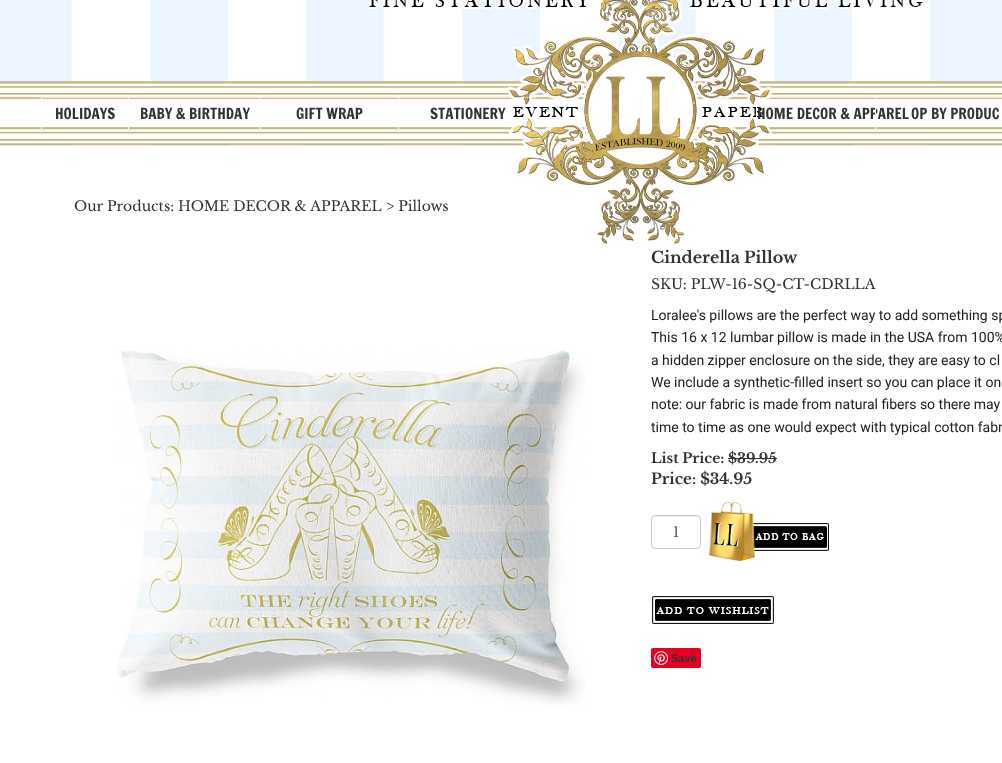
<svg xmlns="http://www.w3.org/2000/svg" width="1002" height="763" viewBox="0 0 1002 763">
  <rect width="100%" height="100%" fill="#fff"/>
  <image x="0" y="0" width="1002" height="146" href="img/1.png"/>
  <image x="0" y="81" width="1002" height="65" href="img/2.png"/>
  <path d="M41 97H128V98H42Z" fill="#ebe3ce"/>
  <path d="M41 129V97L42 98V129Z" fill="#fff"/>
  <path d="M128 97H260V98H129Z" fill="#ebe3ce"/>
  <path d="M128 129V97L129 98V129Z" fill="#fff"/>
  <image x="117" y="350" width="468" height="355" href="img/4.png"/>
  <path d="M728 458h49v1H728z" fill="#333"/>
  <path d="M655 517H697C699 517 700 518 700 520C700 514 694 516 690 516H662C658 516 652 514 652 520C652 518 653 517 655 517Z" fill="#ececec"/>
  <rect x="651.5" y="515.5" width="49" height="33" rx="3.5" fill="none" stroke="#ccc"/>
  <image x="709" y="502" width="120" height="59" href="img/5.png"/>
  <image x="652" y="596" width="122" height="28" href="img/6.png"/>
  <rect x="651" y="648" width="50" height="20" rx="2" fill="#e60023"/>
  <image x="654" y="651" width="14" height="14" href="img/7.png"/>
  <g font-family="Francois One" font-size="15" fill="#333">
    <text x="55" y="119">HOLIDAYS</text>
    <text x="140" y="119">BABY &amp; BIRTHDAY</text>
    <text x="296" y="119">GIFT WRAP</text>
  </g>
  <g font-family="Libre Baskerville" font-size="14" fill="#333">
    <text x="74" y="211">Our Products:</text>
    <text x="178" y="211">HOME DECOR &amp; APPAREL</text>
    <text x="386" y="211">&gt; Pillows</text>
  </g>
  <image x="367" y="0" width="556" height="245" href="img/3.png"/>
  <text x="911" y="119" font-family="Francois One" font-size="15" fill="#333">OP BY PRODUC</text>
  <path d="M875 97H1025V98H876Z" fill="#ebe3ce"/>
  <text x="757" y="119" font-family="Francois One" font-size="15" fill="#333">HOME DECOR &amp; APPAREL</text>
  <path d="M875 129V97L876 98V129Z" fill="#fff"/>
  <path d="M756 97H875V98H757Z" fill="#ffffff80"/>
  <path d="M756 129V97L757 98V129Z" fill="#fff"/>
  <text x="430" y="119" font-family="Francois One" font-size="15" fill="#333">STATIONERY</text>
  <path d="M398 97H536V98H399Z" fill="#ffffff80"/>
  <path d="M398 129V97L399 98V129Z" fill="#fff"/>
  <path d="M260 97H398V98H261Z" fill="#ebe3ce"/>
  <path d="M260 129V97L261 98V129Z" fill="#fff"/>
  <text x="651" y="263" font-family="Libre Baskerville" font-size="16" font-weight="bold" fill="#333">Cinderella Pillow</text>
  <text x="651" y="289" font-family="Libre Baskerville" font-size="14" fill="#333">SKU: PLW-16-SQ-CT-CDRLLA</text>
  <g font-family="Roboto" font-size="14" fill="#212121">
    <text x="651" y="320">Loralee's pillows are the perfect way to add something sp</text>
    <text x="651" y="342">This 16 x 12 lumbar pillow is made in the USA from 100%</text>
    <text x="651" y="365">a hidden zipper enclosure on the side, they are easy to cl</text>
    <text x="651" y="387">We include a synthetic-filled insert so you can place it on</text>
    <text x="651" y="409">note: our fabric is made from natural fibers so there may</text>
    <text x="651" y="432">time to time as one would expect with typical cotton fabr</text>
  </g>
  <text x="651" y="463" font-family="Libre Baskerville" font-size="14" font-weight="bold" fill="#333">List Price: $39.95</text>
  <text x="651" y="484" font-family="Libre Baskerville" font-size="15" font-weight="bold" fill="#333">Price: $34.95</text>
  <text x="673" y="537" font-family="Libre Baskerville" font-size="14" fill="#555">1</text>
  <text x="671" y="662" font-family="Liberation Sans" font-size="11" font-weight="bold" fill="#333">Save</text>
</svg>
